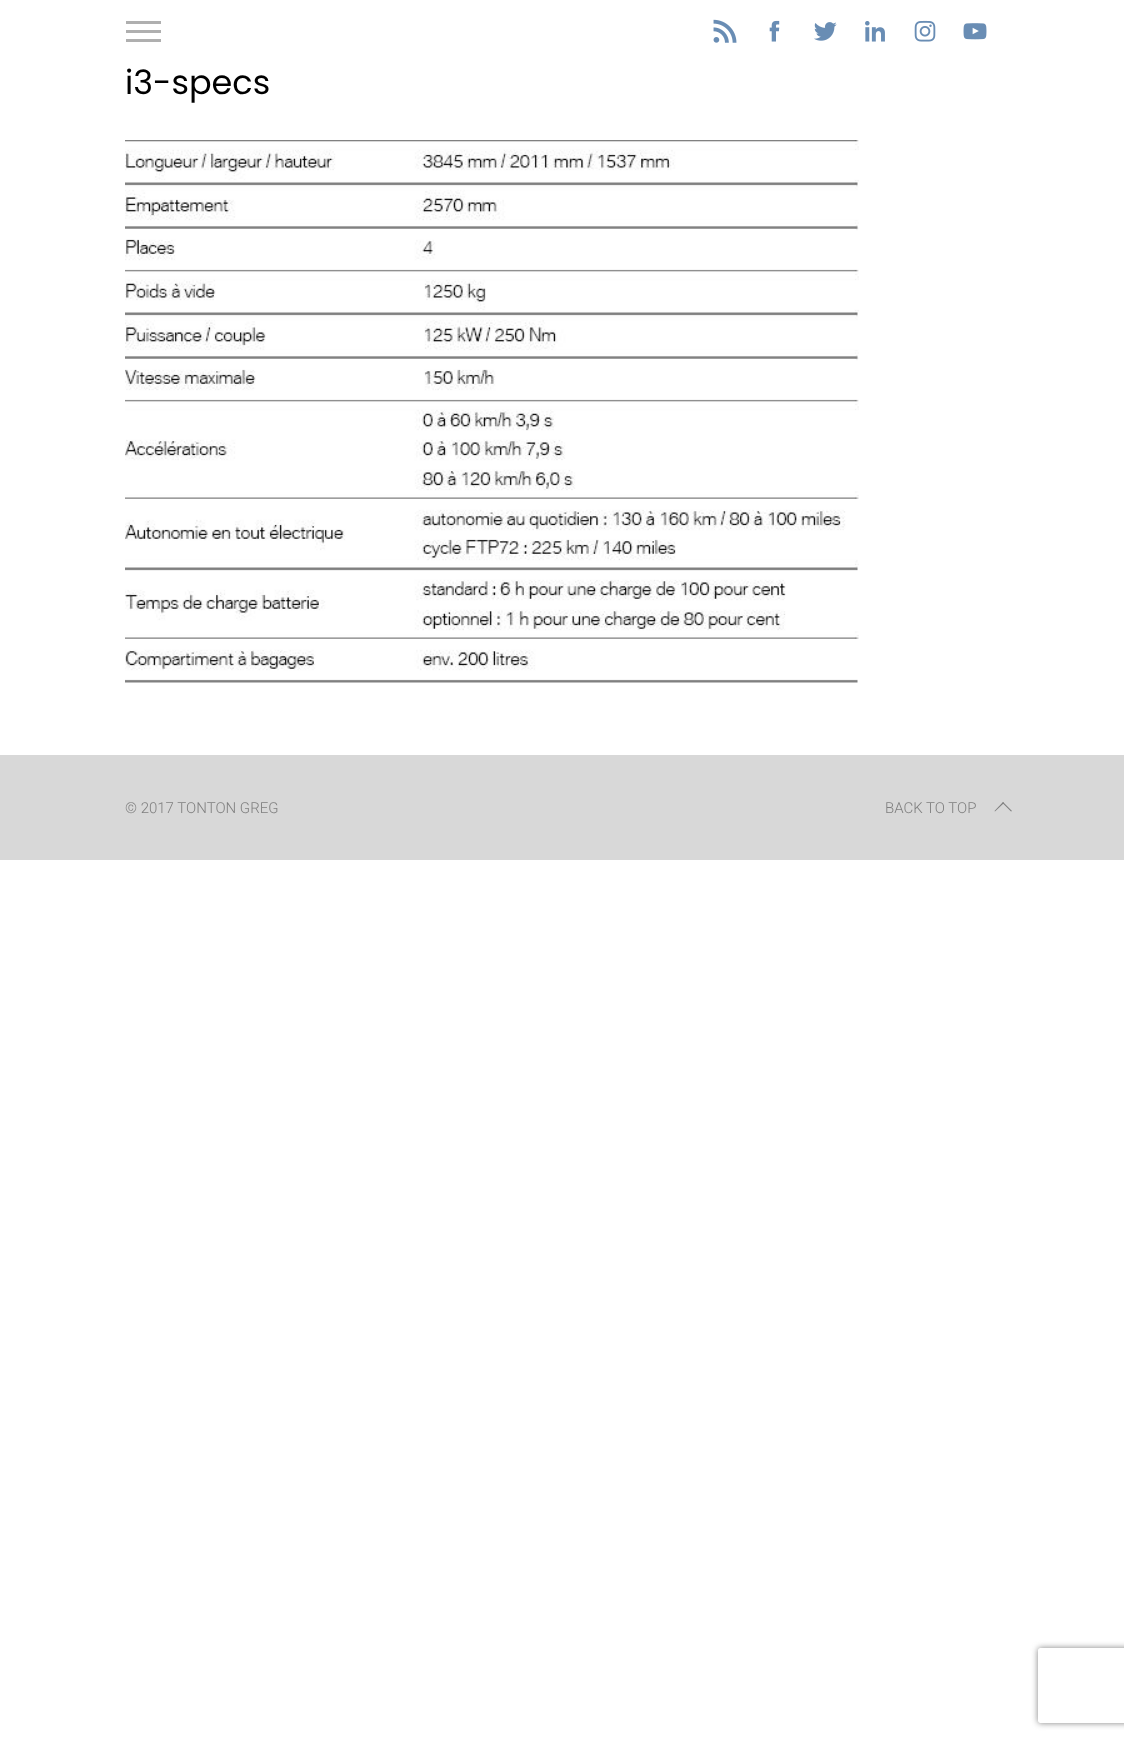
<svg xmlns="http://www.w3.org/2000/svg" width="1124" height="1740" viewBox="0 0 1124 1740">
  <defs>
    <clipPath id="clip1"><path d="M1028 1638H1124V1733H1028ZM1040.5 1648H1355.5C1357 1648 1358 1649 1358 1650.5V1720.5C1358 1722 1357 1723 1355.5 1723H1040.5C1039 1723 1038 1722 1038 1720.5V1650.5C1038 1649 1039 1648 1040.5 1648Z" clip-rule="evenodd"/></clipPath>
  </defs>
  <rect width="100%" height="100%" fill="#fff"/>
  <path d="M126 30h35v3H126z" fill="#afafaf"/>
  <path d="M126 21h35v3H126z" fill="#afafaf"/>
  <path d="M126 39h35v3H126z" fill="#afafaf"/>
  <image x="713" y="19" width="24" height="24" href="img/1.png"/>
  <image x="769" y="20" width="11" height="22" href="img/2.png"/>
  <image x="814" y="22" width="23" height="19" href="img/3.png"/>
  <image x="865" y="21" width="20" height="21" href="img/4.png"/>
  <image x="914" y="20" width="22" height="22" href="img/5.png"/>
  <image x="963" y="23" width="24" height="17" href="img/6.png"/>
  <image x="125" y="140" width="734" height="543" href="img/7.png"/>
  <path d="M0 755h1124v105H0z" fill="#d8d8d8"/>
  <path d="M994.5 811L1003 802L1004 803L995 811.5Z" fill="#7f7f7f"/>
  <path d="M1002.5 803L1003 802L1012 811L1011 811.5Z" fill="#7f7f7f"/>
  <g clip-path="url(#clip1)">
    <rect x="1038" y="1648" width="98" height="75" rx="2.5" fill="#808080" filter="blur(3px)"/>
  </g>
  <text x="125" y="94" font-family="Poppins" font-size="33.5" fill="#000">i3-specs</text>
  <g font-family="Roboto" font-size="15" font-weight="300" fill="#7f7f7f">
    <text x="125" y="813">© 2017 TONTON GREG</text>
    <text x="885" y="813">BACK TO TOP</text>
  </g>
</svg>
